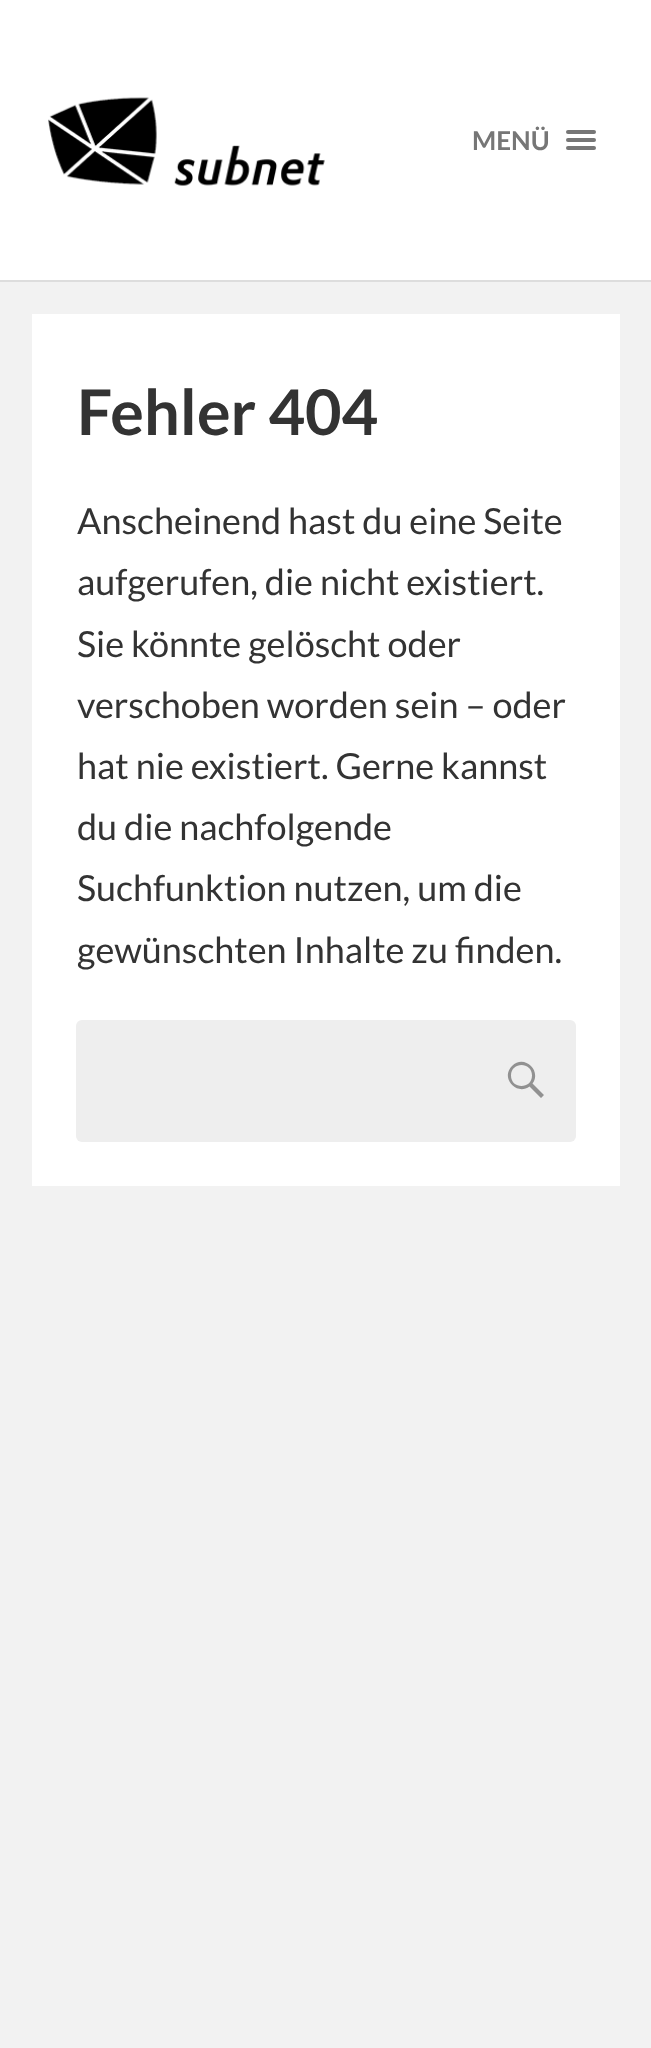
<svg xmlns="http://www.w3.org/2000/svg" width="651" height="2048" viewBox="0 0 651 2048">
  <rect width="100%" height="100%" fill="#f2f2f2"/>
  <path d="M0 0h651v280H0z" fill="#fff"/>
  <path d="M0 280h651v2H0z" fill="#ddd"/>
  <image x="48" y="97" width="277" height="89" href="img/1.png"/>
  <rect x="566" y="130" width="30" height="4" rx="2" fill="#767676"/>
  <rect x="566" y="138" width="30" height="4" rx="2" fill="#767676"/>
  <rect x="566" y="146" width="30" height="4" rx="2" fill="#767676"/>
  <path d="M32 314h588v872H32z" fill="#fff"/>
  <rect x="76" y="1020" width="500" height="122" rx="6" fill="#eee"/>
  <path d="M544 1095L532.5 1083.5C542 1070.5 524 1054 512 1066C500 1078 516.5 1096 529.5 1086.5L541 1098ZM511 1075.5C511 1061.5 532 1061.5 532 1075.5C532 1089.5 511 1089.5 511 1075.5Z" fill="#919191"/>
  <text x="472" y="150" font-family="Lato" font-size="26" font-weight="bold" fill="#767676">MENÜ</text>
  <text x="77" y="435" font-family="Lato" font-size="63" font-weight="bold" fill="#333">Fehler 404</text>
  <g font-family="Lato" font-size="36" fill="#333">
    <text x="77" y="534">Anscheinend hast du eine Seite</text>
    <text x="77" y="595">aufgerufen, die nicht existiert.</text>
    <text x="77" y="657">Sie könnte gelöscht oder</text>
    <text x="77" y="718">verschoben worden sein – oder</text>
    <text x="77" y="779">hat nie existiert. Gerne kannst</text>
    <text x="77" y="840">du die nachfolgende</text>
    <text x="77" y="901">Suchfunktion nutzen, um die</text>
    <text x="77" y="963">gewünschten Inhalte zu finden.</text>
  </g>
</svg>
